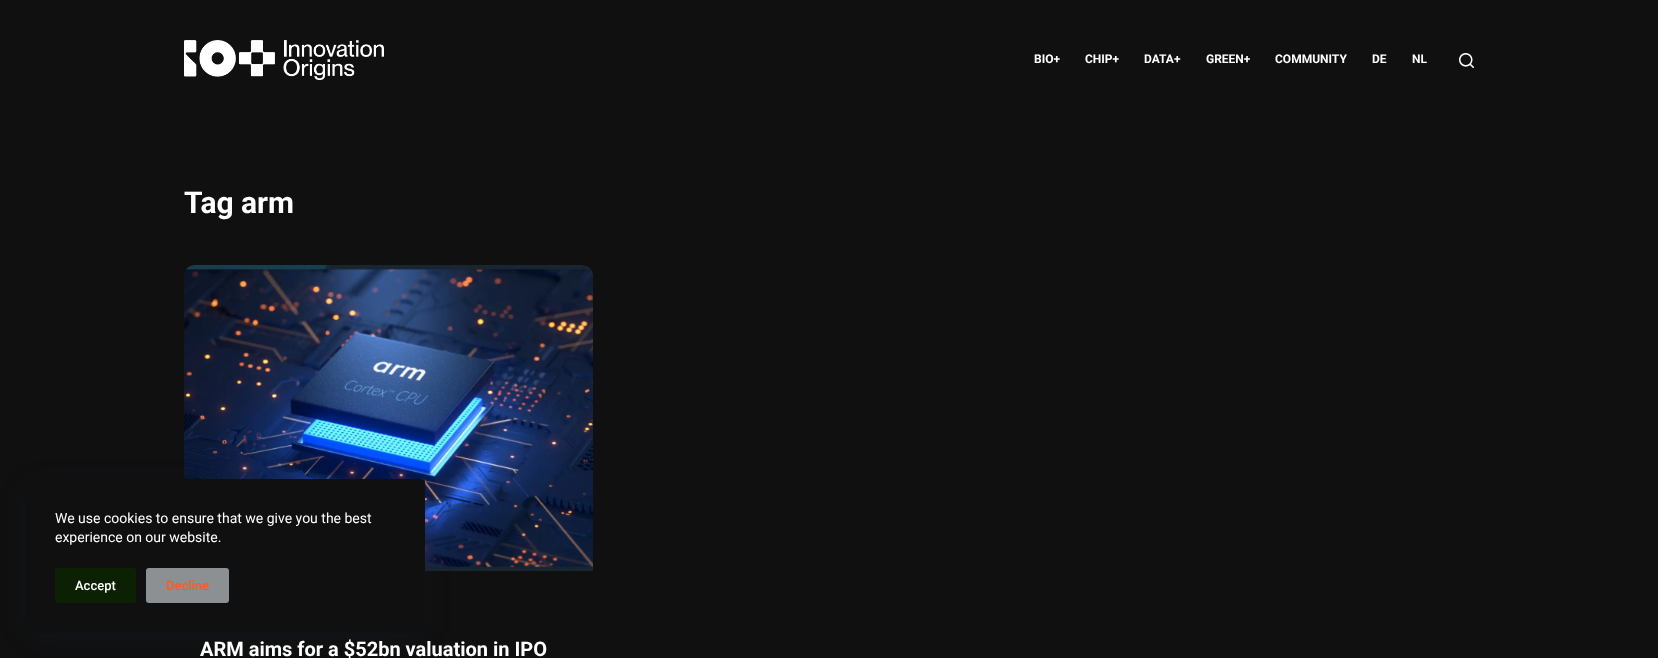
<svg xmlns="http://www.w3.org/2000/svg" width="1658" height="658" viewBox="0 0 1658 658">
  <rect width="100%" height="100%" fill="#101010"/>
  <image x="184" y="40" width="200" height="40" href="img/1.png"/>
  <image x="1459" y="53" width="15" height="15" href="img/2.png"/>
  <image x="184" y="265" width="409" height="306" href="img/3.png"/>
  <path d="M30 489h390v144H30z" fill="#22386526" filter="blur(15px)"/>
  <rect x="25" y="479" width="400" height="154" rx="3" fill="#101010"/>
  <rect x="55" y="568" width="81" height="35" rx="3" fill="#0c2103"/>
  <rect x="146" y="568" width="83" height="35" rx="3" fill="#8d9093"/>
  <g font-family="Roboto" font-size="12" font-weight="bold" fill="#fff">
    <text x="1034" y="63">BIO+</text>
    <text x="1085" y="63">CHIP+</text>
    <text x="1144" y="63">DATA+</text>
    <text x="1206" y="63">GREEN+</text>
    <text x="1275" y="63">COMMUNITY</text>
    <text x="1372" y="63">DE</text>
    <text x="1412" y="63">NL</text>
  </g>
  <text x="184" y="213" font-family="Roboto" font-size="30" font-weight="bold" fill="#fff">Tag arm</text>
  <text x="200" y="656" font-family="Roboto" font-size="20" font-weight="bold" fill="#fff">ARM aims for a $52bn valuation in IPO</text>
  <g font-family="Roboto" font-size="14" fill="#fff">
    <text x="55" y="523">We use cookies to ensure that we give you the best</text>
    <text x="55" y="542">experience on our website.</text>
  </g>
  <text x="75" y="590" font-family="Roboto" font-size="13" font-weight="500" fill="#fff">Accept</text>
  <text x="166" y="590" font-family="Roboto" font-size="13" font-weight="500" fill="#ff5823">Decline</text>
</svg>
